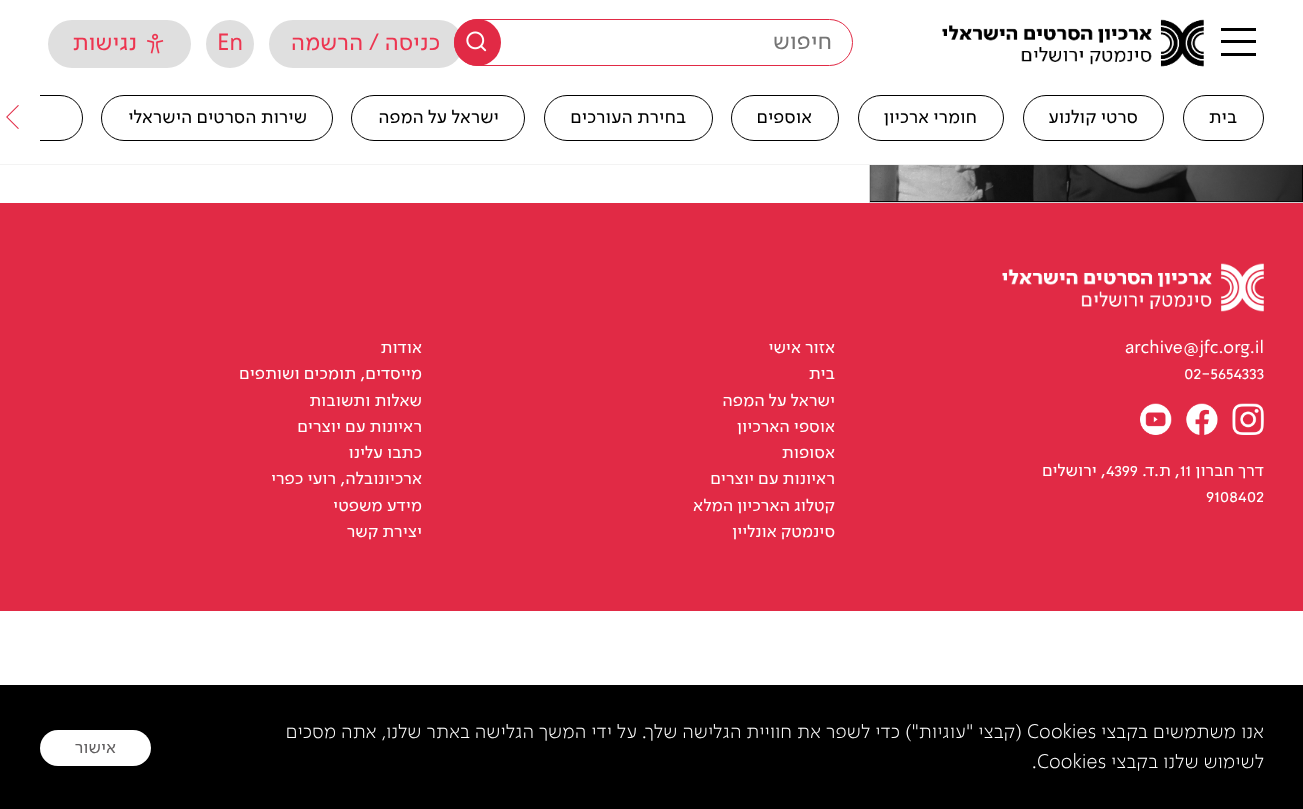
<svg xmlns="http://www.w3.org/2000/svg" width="1303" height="809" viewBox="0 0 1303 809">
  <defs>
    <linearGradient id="g1" gradientUnits="userSpaceOnUse" x1="870" y1="73" x2="1303" y2="73"><stop offset="0" stop-color="#000" stop-opacity="0"/><stop offset="1" stop-color="#000" stop-opacity="0.8"/></linearGradient>
    <clipPath id="clip1"><path d="M40 95h1224v46H40z"/></clipPath>
  </defs>
  <rect width="100%" height="100%" fill="#fff"/>
  <path d="M0 203h1303v408H0z" fill="#e12a45"/>
  <path d="M870 165h433v37H870z" fill="#000"/>
  <path d="M869.5 -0.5h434v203H869.5z" fill="none" stroke="#d0d0d0"/>
  <image x="870" y="165" width="433" height="37" href="img/1.png"/>
  <path d="M884 165h419v36H884z" fill="url(#g1)"/>
  <path d="M869 0h1v164H869z" fill="#fff"/>
  <path d="M0 164h1303v1H0z" fill="#f3f3f3"/>
  <path d="M1221 28h35v3H1221z" fill="#000"/>
  <path d="M1221 40h35v3H1221z" fill="#000"/>
  <path d="M1221 53h35v3H1221z" fill="#000"/>
  <image x="942" y="19" width="262" height="48" href="img/2.png"/>
  <rect x="269" y="20" width="194" height="48" rx="24" fill="#dfdfdf"/>
  <rect x="454.5" y="19.5" width="398" height="46" rx="23" fill="#fff" stroke="#e12a45"/>
  <circle cx="477.5" cy="42.5" r="23.5" fill="#e12a45"/>
  <image x="466" y="31" width="21" height="21" href="img/3.png"/>
  <circle cx="230" cy="44" r="24" fill="#dfdfdf"/>
  <rect x="48" y="20" width="143" height="48" rx="24" fill="#dfdfdf"/>
  <image x="147" y="33" width="17" height="21" href="img/4.png"/>
  <rect x="1183.5" y="95.5" width="80" height="45" rx="22.5" fill="none" stroke="#000"/>
  <rect x="1023.5" y="95.5" width="140" height="45" rx="22.5" fill="none" stroke="#000"/>
  <rect x="858.5" y="95.5" width="145" height="45" rx="22.5" fill="none" stroke="#000"/>
  <rect x="731.5" y="95.5" width="107" height="45" rx="22.5" fill="none" stroke="#000"/>
  <rect x="544.5" y="95.5" width="168" height="45" rx="22.5" fill="none" stroke="#000"/>
  <rect x="351.5" y="95.5" width="173" height="45" rx="22.5" fill="none" stroke="#000"/>
  <rect x="101.5" y="95.5" width="231" height="45" rx="22.5" fill="none" stroke="#000"/>
  <image x="6" y="105" width="13" height="24" href="img/5.png"/>
  <g clip-path="url(#clip1)">
    <rect x="-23.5" y="95.5" width="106" height="45" rx="22.5" fill="none" stroke="#000"/>
  </g>
  <image x="1002" y="263" width="262" height="49" href="img/6.png"/>
  <image x="1232" y="403" width="32" height="32" href="img/7.png"/>
  <image x="1186" y="403" width="32" height="32" href="img/8.png"/>
  <image x="1140" y="403" width="32" height="32" href="img/9.png"/>
  <path d="M0 685h1303v124H0z" fill="#000"/>
  <rect x="40" y="730" width="111" height="36" rx="18" fill="#fff"/>
  <text x="832" y="49" font-family="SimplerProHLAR" font-size="23.75" direction="rtl" fill="#757575">חיפוש</text>
  <text x="440" y="50" font-family="SimplerProHLAR" font-size="23.75" direction="rtl" fill="#ed3550">כניסה / הרשמה</text>
  <text x="217" y="50" font-family="SimplerProHLAR" font-size="23.75" fill="#ed3550">En</text>
  <text x="137" y="50" font-family="SimplerProHLAR" font-size="23.75" direction="rtl" fill="#ed3550">נגישות</text>
  <g font-family="SimplerProHLAR" font-size="18.75" direction="rtl" fill="#000">
    <text x="1237" y="123">בית</text>
    <text x="1138" y="123">סרטי קולנוע</text>
    <text x="977" y="123">חומרי ארכיון</text>
    <text x="812" y="123">אוספים</text>
    <text x="686" y="123">בחירת העורכים</text>
    <text x="499" y="123">ישראל על המפה</text>
    <text x="307" y="123">שירות הסרטים הישראלי</text>
  </g>
  <g font-family="SimplerProHLAR" font-size="17.5" fill="#fff">
    <text x="1125" y="353">archive@jfc.org.il</text>
    <text x="1184" y="379">02-5654333</text>
  </g>
  <text x="1264" y="476" font-family="SimplerProHLAR" font-size="17.5" direction="rtl" fill="#fff">דרך חברון</text>
  <text x="1180" y="476" font-family="SimplerProHLAR" font-size="17.5" fill="#fff">11</text>
  <text x="1180" y="476" font-family="SimplerProHLAR" font-size="17.5" direction="rtl" fill="#fff">, ת.ד.</text>
  <text x="1106" y="476" font-family="SimplerProHLAR" font-size="17.5" fill="#fff">4399</text>
  <text x="1106" y="476" font-family="SimplerProHLAR" font-size="17.5" direction="rtl" fill="#fff">, ירושלים</text>
  <text x="1206" y="502" font-family="SimplerProHLAR" font-size="17.5" fill="#fff">9108402</text>
  <g font-family="SimplerProHLAR" font-size="17.5" direction="rtl" fill="#fff">
    <text x="835" y="353">אזור אישי</text>
    <text x="835" y="379">בית</text>
    <text x="835" y="406">ישראל על המפה</text>
    <text x="835" y="432">אוספי הארכיון</text>
    <text x="835" y="458">אסופות</text>
    <text x="835" y="484">ראיונות עם יוצרים</text>
    <text x="835" y="511">קטלוג הארכיון המלא</text>
    <text x="835" y="537">סינמטק אונליין</text>
    <text x="422" y="353">אודות</text>
    <text x="422" y="379">מייסדים, תומכים ושותפים</text>
    <text x="422" y="406">שאלות ותשובות</text>
    <text x="422" y="432">ראיונות עם יוצרים</text>
    <text x="422" y="458">כתבו עלינו</text>
    <text x="422" y="484">ארכיונובלה, רועי כפרי</text>
    <text x="422" y="511">מידע משפטי</text>
    <text x="422" y="537">יצירת קשר</text>
  </g>
  <text x="1264" y="738" font-family="SimplerProHLAR" font-size="20" font-weight="300" direction="rtl" fill="#fff">אנו משתמשים בקבצי</text>
  <text x="1027" y="738" font-family="SimplerProHLAR" font-size="20" font-weight="300" fill="#fff">Cookies</text>
  <g font-family="SimplerProHLAR" font-size="20" font-weight="300" direction="rtl" fill="#fff">
    <text x="1022" y="738">(קבצי "עוגיות") כדי לשפר את חוויית הגלישה שלך. על ידי המשך הגלישה באתר שלנו, אתה מסכים</text>
    <text x="1264" y="768">לשימוש שלנו בקבצי</text>
  </g>
  <text x="1032" y="768" font-family="SimplerProHLAR" font-size="20" font-weight="300" fill="#fff">.Cookies</text>
  <text x="116" y="753" font-family="SimplerProHLAR" font-size="17.5" direction="rtl" fill="#626061">אישור</text>
</svg>
